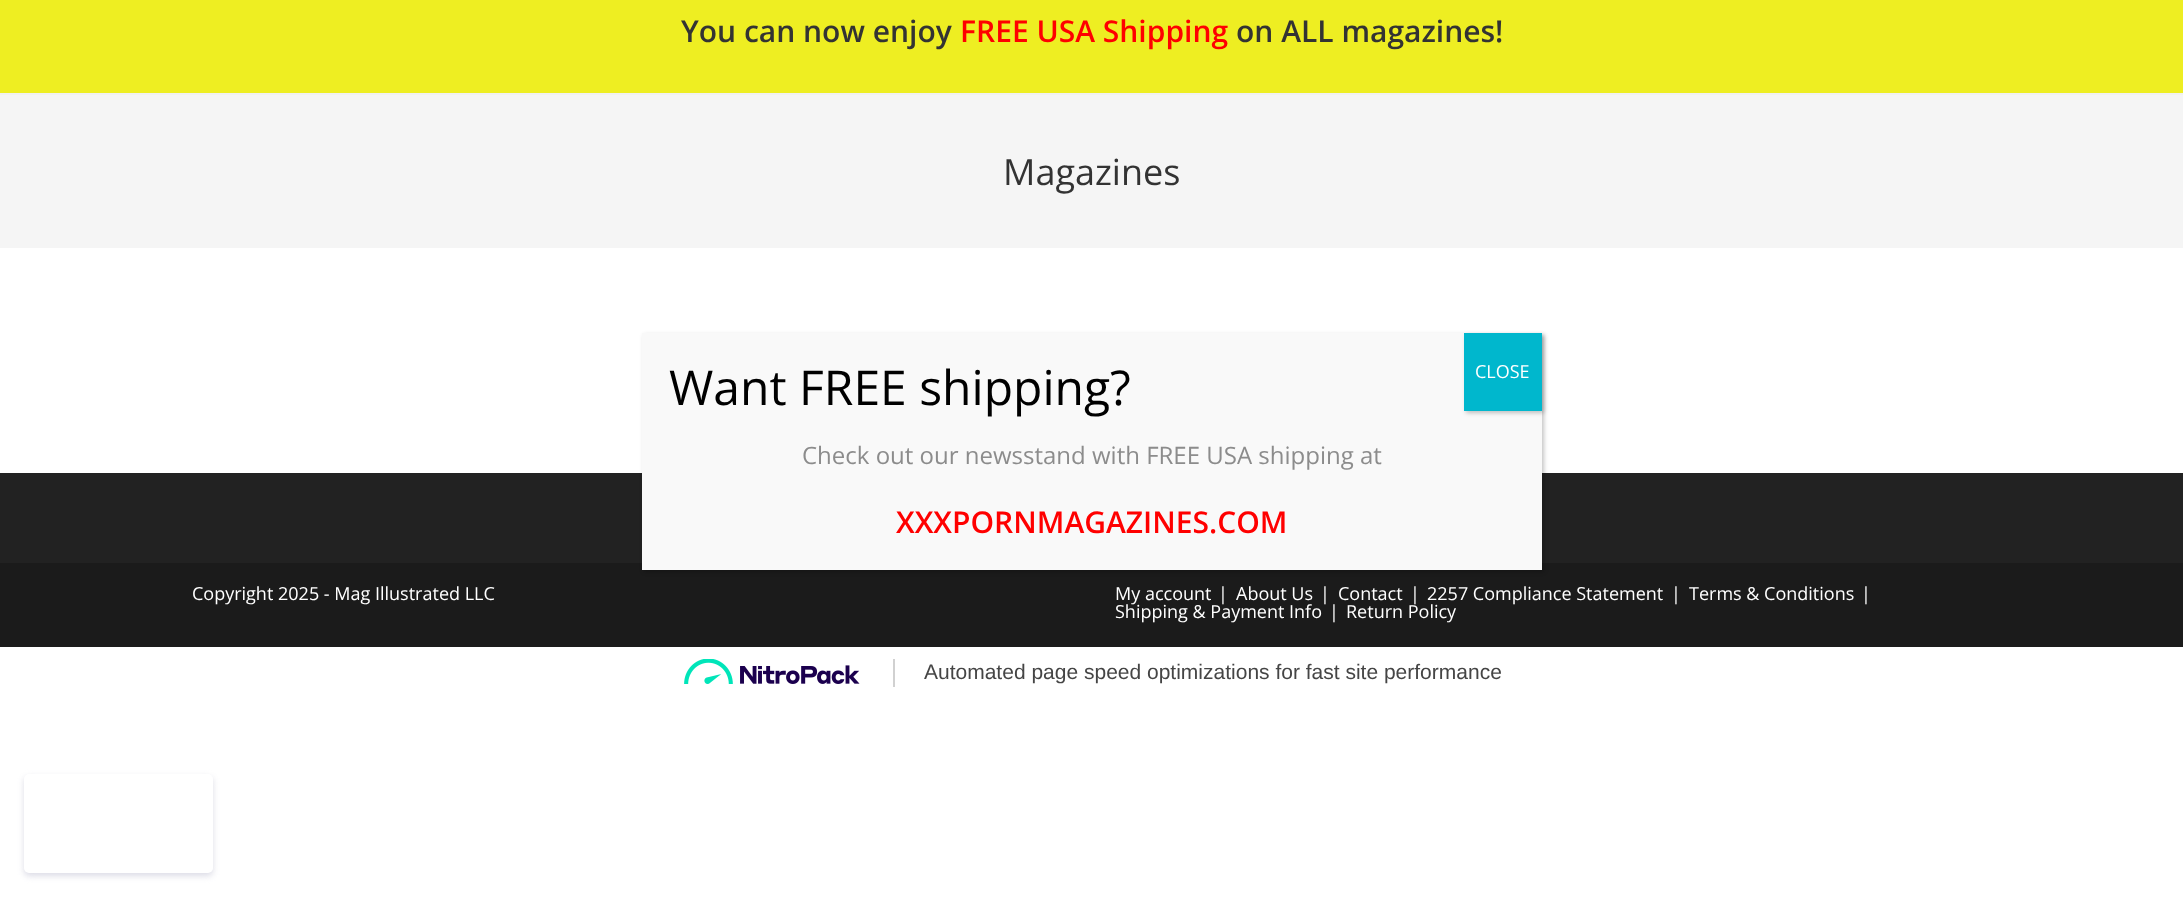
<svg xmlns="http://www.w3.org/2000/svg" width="2183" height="903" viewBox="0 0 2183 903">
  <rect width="100%" height="100%" fill="#fff"/>
  <path d="M0 0h2183v93H0z" fill="#ee2"/>
  <path d="M0 93h2183v2H0z" fill="#f1f1f1"/>
  <path d="M0 95h2183v153H0z" fill="#f5f5f5"/>
  <path d="M0 473h2183v90H0z" fill="#222"/>
  <path d="M0 563h2183v84H0z" fill="#1b1b1b"/>
  <path d="M644 335h900v237H644z" fill="#0202023b" filter="blur(2px)"/>
  <path d="M642 333h900v237H642z" fill="#f9f9f9"/>
  <path d="M1466 335h78v78H1466z" fill="#0202023b" filter="blur(2px)"/>
  <path d="M1464 333h78v78H1464z" fill="#00b7cd"/>
  <path d="M893 659h2v28H893z" fill="#d1d1d1"/>
  <image x="684" y="659" width="176" height="25" href="img/1.png"/>
  <rect x="24" y="777" width="189" height="99" rx="5" fill="#dcdce6" filter="blur(3px)"/>
  <rect x="24" y="774" width="189" height="99" rx="5" fill="#fff"/>
  <text x="681" y="42" font-family="Open Sans" font-size="30" font-weight="600" fill="#333">You can now enjoy</text>
  <text x="960" y="42" font-family="Open Sans" font-size="30" font-weight="600" fill="#f00">FREE USA Shipping</text>
  <text x="1236" y="42" font-family="Open Sans" font-size="30" font-weight="600" fill="#333">on ALL magazines!</text>
  <text x="1003" y="185" font-family="Open Sans" font-size="36" fill="#333">Magazines</text>
  <g font-family="Open Sans" font-size="18" fill="#fff">
    <text x="192" y="600">Copyright 2025 - Mag Illustrated LLC</text>
    <text x="1115" y="600">My account</text>
    <text x="1218" y="600">|</text>
    <text x="1236" y="600">About Us</text>
    <text x="1320" y="600">|</text>
    <text x="1338" y="600">Contact</text>
    <text x="1410" y="600">|</text>
    <text x="1427" y="600">2257 Compliance Statement</text>
    <text x="1671" y="600">|</text>
    <text x="1689" y="600">Terms &amp; Conditions</text>
    <text x="1861" y="600">|</text>
    <text x="1115" y="618">Shipping &amp; Payment Info</text>
    <text x="1329" y="618">|</text>
    <text x="1346" y="618">Return Policy</text>
  </g>
  <text x="669" y="405" font-family="Open Sans" font-size="48" fill="#000">Want FREE shipping?</text>
  <text x="1475" y="378" font-family="Open Sans" font-size="18" fill="#fff">CLOSE</text>
  <text x="802" y="464" font-family="Open Sans" font-size="24" fill="#8c8c8c">Check out our newsstand with FREE USA shipping at</text>
  <text x="896" y="533" font-family="Open Sans" font-size="30" font-weight="600" fill="#f00">XXXPORNMAGAZINES.COM</text>
  <text x="924" y="679" font-family="Liberation Sans" font-size="21" fill="#454545">Automated page speed optimizations for fast site performance</text>
</svg>
